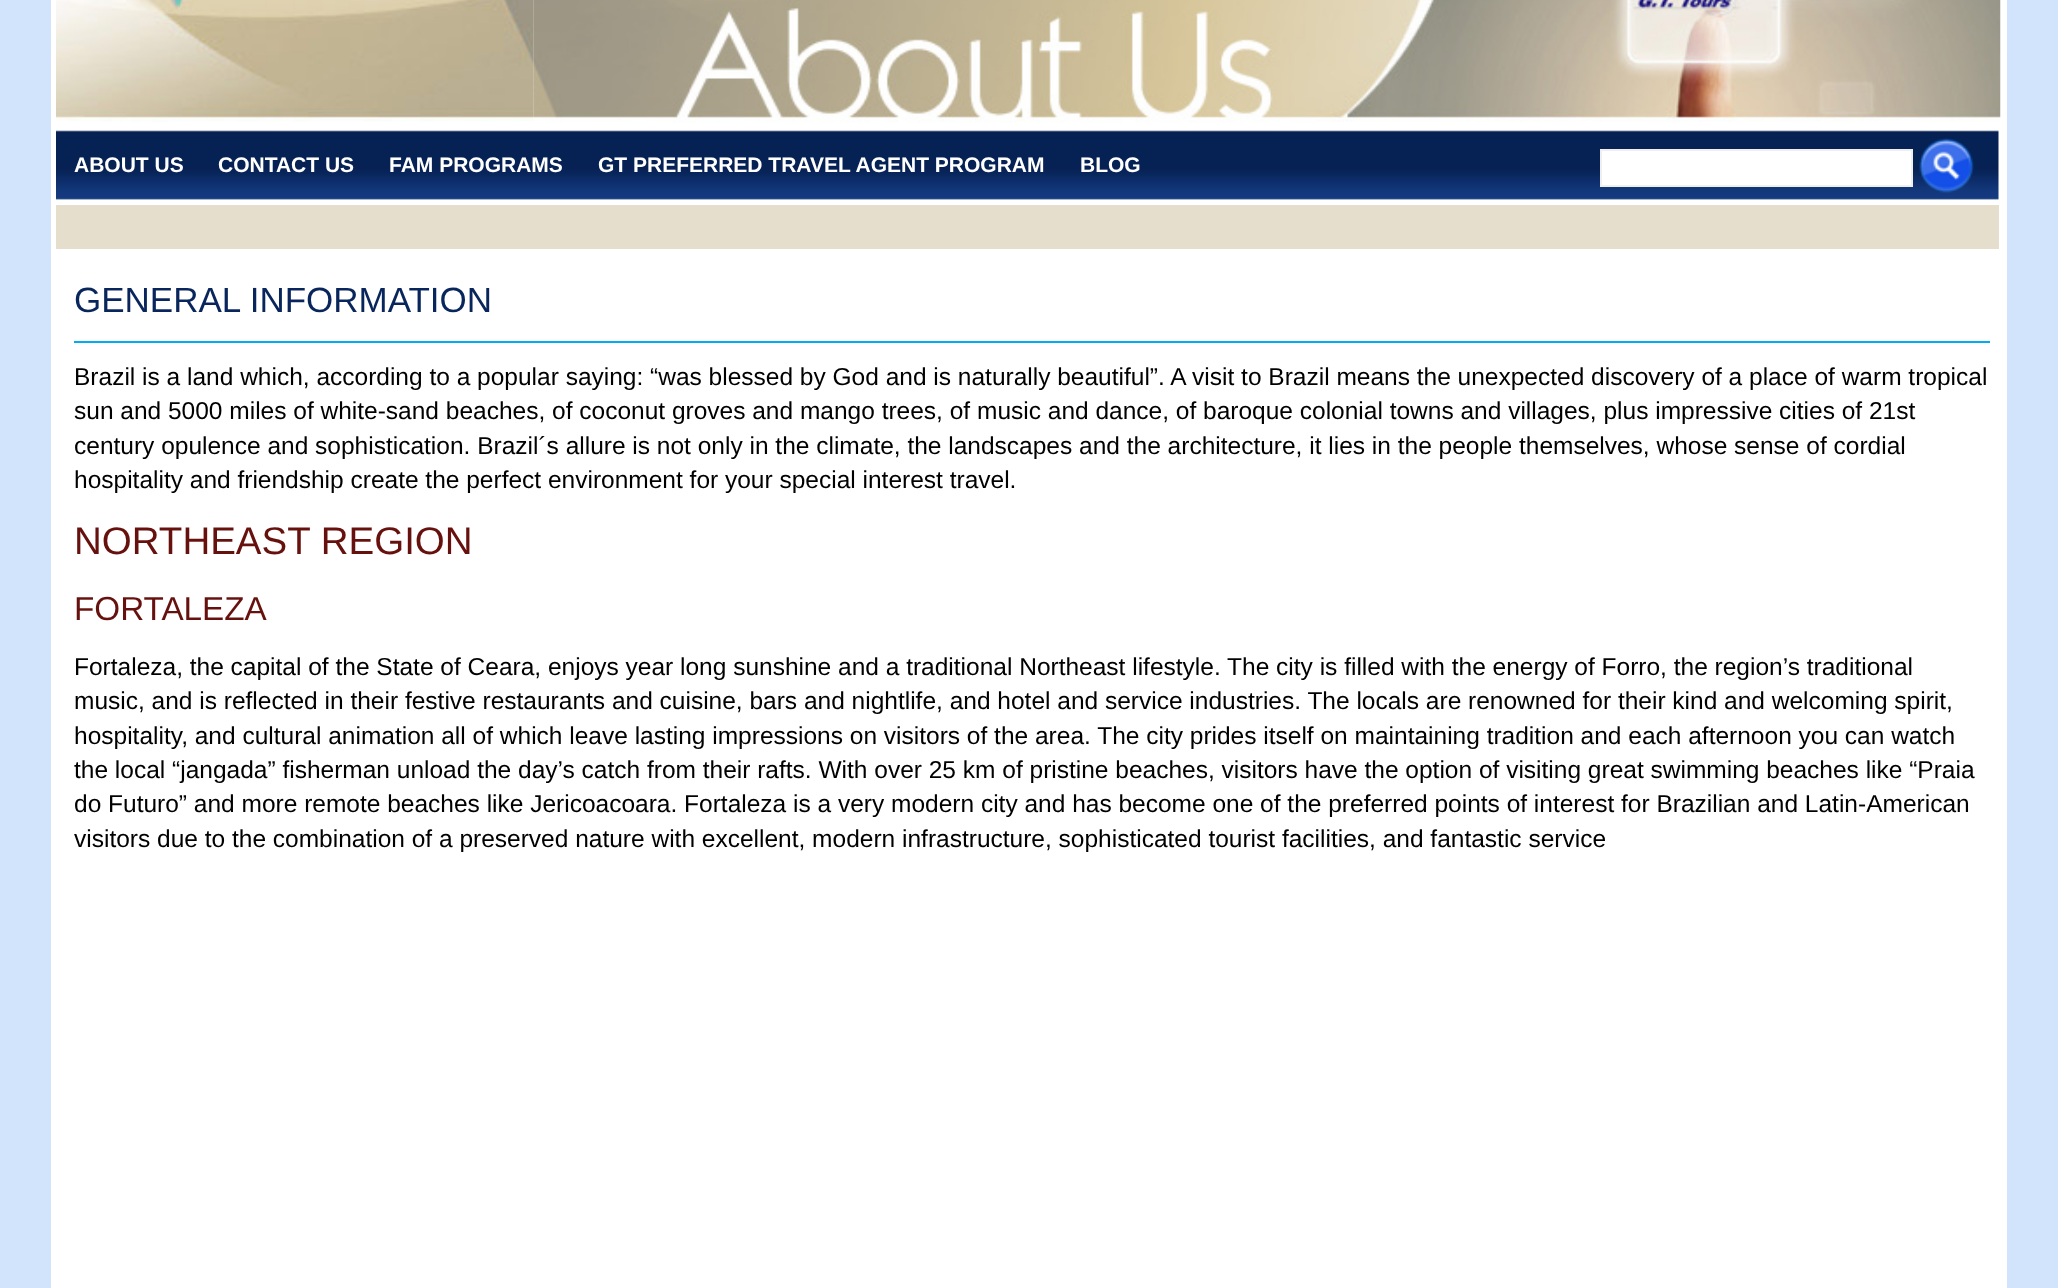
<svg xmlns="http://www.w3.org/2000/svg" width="2058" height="1288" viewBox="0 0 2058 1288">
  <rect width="100%" height="100%" fill="#d2e3fc"/>
  <path d="M51 0h1956v1288H51z" fill="#fff"/>
  <image x="56" y="0" width="478" height="122" href="img/1.png"/>
  <image x="533" y="0" width="783" height="123" href="img/2.png"/>
  <image x="1316" y="0" width="685" height="122" href="img/3.png"/>
  <image x="56" y="130" width="1943" height="70" href="img/4.png"/>
  <path d="M1601 150h311v36H1601z" fill="#fff" stroke="#efefef" stroke-width="2"/>
  <image x="1919" y="138" width="55" height="55" href="img/5.png"/>
  <path d="M56 205h1943v44H56z" fill="#e5decc"/>
  <path d="M74 341h1916v2H74z" fill="#00aef0"/>
  <g font-family="Liberation Sans" font-size="21" font-weight="bold" fill="#fff">
    <text x="74" y="172">ABOUT US</text>
    <text x="218" y="172">CONTACT US</text>
    <text x="389" y="172">FAM PROGRAMS</text>
    <text x="598" y="172">GT PREFERRED TRAVEL AGENT PROGRAM</text>
    <text x="1080" y="172">BLOG</text>
  </g>
  <text x="74" y="312" font-family="Liberation Sans" font-size="35" fill="#09265c">GENERAL INFORMATION</text>
  <g font-family="Liberation Sans" font-size="24.5" fill="#000">
    <text x="74" y="385">Brazil is a land which, according to a popular saying: “was blessed by God and is naturally beautiful”. A visit to Brazil means the unexpected discovery of a place of warm tropical</text>
    <text x="74" y="419">sun and 5000 miles of white-sand beaches, of coconut groves and mango trees, of music and dance, of baroque colonial towns and villages, plus impressive cities of 21st</text>
    <text x="74" y="454">century opulence and sophistication. Brazil´s allure is not only in the climate, the landscapes and the architecture, it lies in the people themselves, whose sense of cordial</text>
    <text x="74" y="488">hospitality and friendship create the perfect environment for your special interest travel.</text>
  </g>
  <text x="74" y="554" font-family="Liberation Sans" font-size="38.5" fill="#67110e">NORTHEAST REGION</text>
  <text x="74" y="620" font-family="Liberation Sans" font-size="33.25" fill="#67110e">FORTALEZA</text>
  <g font-family="Liberation Sans" font-size="24.5" fill="#000">
    <text x="74" y="675">Fortaleza, the capital of the State of Ceara, enjoys year long sunshine and a traditional Northeast lifestyle. The city is filled with the energy of Forro, the region’s traditional</text>
    <text x="74" y="709">music, and is reflected in their festive restaurants and cuisine, bars and nightlife, and hotel and service industries. The locals are renowned for their kind and welcoming spirit,</text>
    <text x="74" y="744">hospitality, and cultural animation all of which leave lasting impressions on visitors of the area. The city prides itself on maintaining tradition and each afternoon you can watch</text>
    <text x="74" y="778">the local “jangada” fisherman unload the day’s catch from their rafts. With over 25 km of pristine beaches, visitors have the option of visiting great swimming beaches like “Praia</text>
    <text x="74" y="812">do Futuro” and more remote beaches like Jericoacoara. Fortaleza is a very modern city and has become one of the preferred points of interest for Brazilian and Latin-American</text>
    <text x="74" y="847">visitors due to the combination of a preserved nature with excellent, modern infrastructure, sophisticated tourist facilities, and fantastic service</text>
  </g>
</svg>
